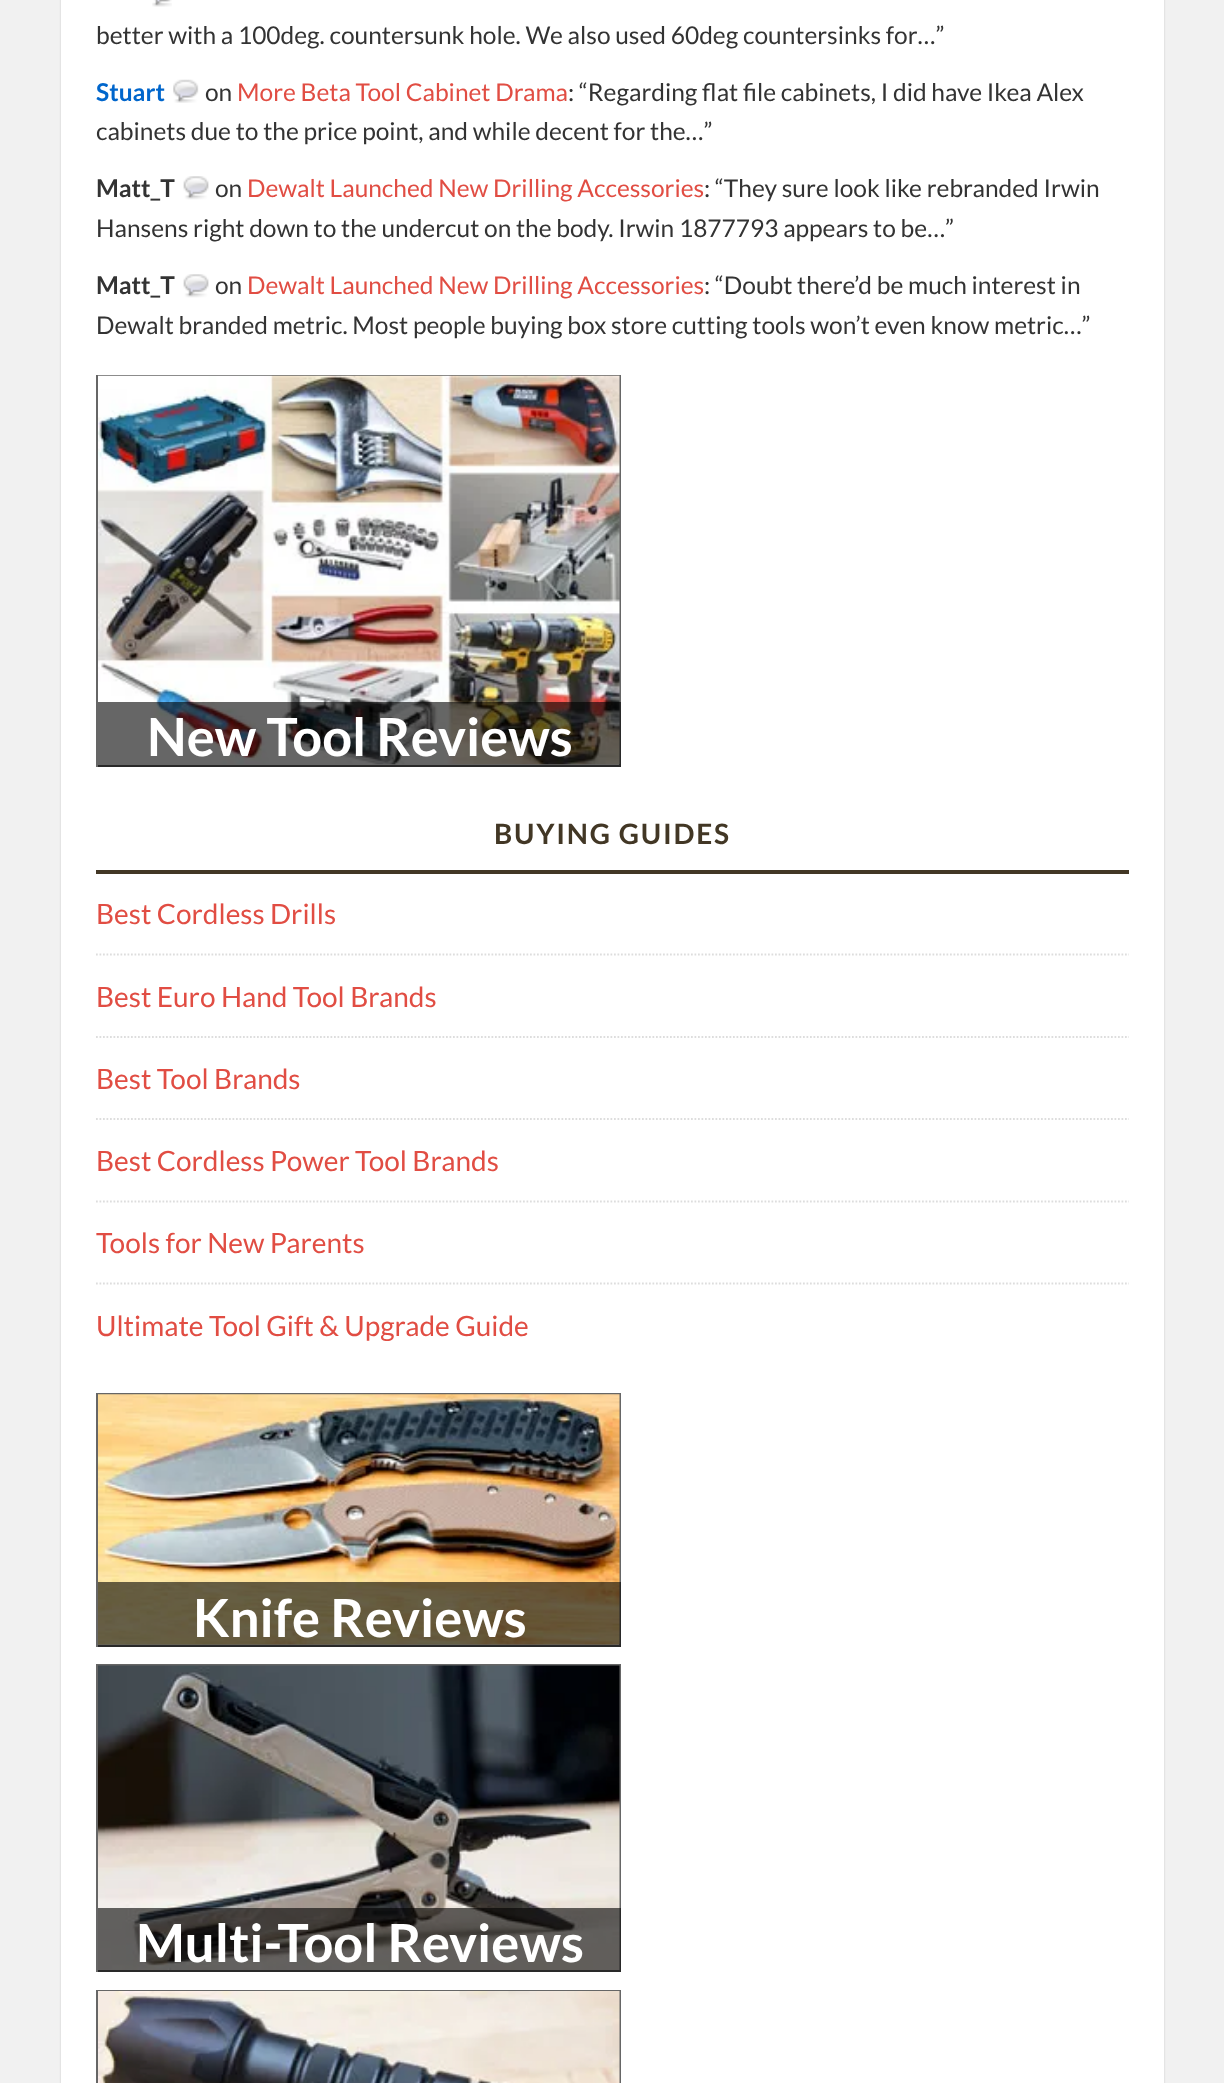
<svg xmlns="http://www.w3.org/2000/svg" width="1224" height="2083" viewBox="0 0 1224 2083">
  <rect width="100%" height="100%" fill="#f1f1f1"/>
  <path d="M61 -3h1103v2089H61z" fill="#00000026" filter="blur(1px)"/>
  <path d="M61 0h1103v2083H61z" fill="#fff"/>
  <image x="152" y="0" width="20" height="7" href="img/1.png"/>
  <image x="173" y="79" width="26" height="24" href="img/2.png"/>
  <image x="183" y="176" width="26" height="24" href="img/3.png"/>
  <image x="183" y="274" width="26" height="24" href="img/3.png"/>
  <path d="M97 376h523v390H97z" fill="none" stroke="#666" stroke-width="2"/>
  <image x="98" y="375" width="522" height="390" href="img/4.png"/>
  <path d="M98 702h523v65H98z" fill="#00000099"/>
  <path d="M96 870h1033v4H96z" fill="#423725"/>
  <path d="M96 954.5H1129" fill="none" stroke="#ddd" stroke-width="1.8" stroke-dasharray="1.75 1.75"/>
  <path d="M96 1037H1129" fill="none" stroke="#ddd" stroke-width="1.8" stroke-dasharray="1.75 1.75"/>
  <path d="M96 1119H1129" fill="none" stroke="#ddd" stroke-width="1.8" stroke-dasharray="1.75 1.75"/>
  <path d="M96 1201.5H1129" fill="none" stroke="#ddd" stroke-width="1.8" stroke-dasharray="1.75 1.75"/>
  <path d="M96 1283.5H1129" fill="none" stroke="#ddd" stroke-width="1.8" stroke-dasharray="1.75 1.75"/>
  <path d="M97 1394h523v252H97z" fill="none" stroke="#666" stroke-width="2"/>
  <image x="98" y="1394" width="522" height="251" href="img/5.png"/>
  <path d="M98 1582h523v65H98z" fill="#00000099"/>
  <path d="M97 1665h523v306H97z" fill="none" stroke="#666" stroke-width="2"/>
  <image x="98" y="1665" width="522" height="305" href="img/6.png"/>
  <path d="M98 1908h523v64H98z" fill="#00000099"/>
  <path d="M97 1991h523v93H97z" fill="none" stroke="#666" stroke-width="2"/>
  <image x="98" y="1991" width="522" height="92" href="img/7.png"/>
  <text x="96" y="44" font-family="Lato" font-size="24.5" fill="#333">better with a 100deg. countersunk hole. We also used 60deg countersinks for…”</text>
  <text x="96" y="101" font-family="Lato" font-size="24.5" font-weight="bold" fill="#06c">Stuart</text>
  <text x="205" y="101" font-family="Lato" font-size="24.5" fill="#333">on</text>
  <text x="237" y="101" font-family="Lato" font-size="24.5" fill="#e14d43">More Beta Tool Cabinet Drama</text>
  <g font-family="Lato" font-size="24.5" fill="#333">
    <text x="568" y="101">: “Regarding flat file cabinets, I did have Ikea Alex</text>
    <text x="96" y="140">cabinets due to the price point, and while decent for the…”</text>
  </g>
  <text x="96" y="197" font-family="Lato" font-size="24.5" font-weight="bold" fill="#333">Matt_T</text>
  <text x="215" y="197" font-family="Lato" font-size="24.5" fill="#333">on</text>
  <text x="247" y="197" font-family="Lato" font-size="24.5" fill="#e14d43">Dewalt Launched New Drilling Accessories</text>
  <g font-family="Lato" font-size="24.5" fill="#333">
    <text x="704" y="197">: “They sure look like rebranded Irwin</text>
    <text x="96" y="237">Hansens right down to the undercut on the body. Irwin 1877793 appears to be…”</text>
  </g>
  <text x="96" y="294" font-family="Lato" font-size="24.5" font-weight="bold" fill="#333">Matt_T</text>
  <text x="215" y="294" font-family="Lato" font-size="24.5" fill="#333">on</text>
  <text x="247" y="294" font-family="Lato" font-size="24.5" fill="#e14d43">Dewalt Launched New Drilling Accessories</text>
  <g font-family="Lato" font-size="24.5" fill="#333">
    <text x="704" y="294">: “Doubt there’d be much interest in</text>
    <text x="96" y="334">Dewalt branded metric. Most people buying box store cutting tools won’t even know metric…”</text>
  </g>
  <text x="147" y="756" font-family="Lato" font-size="52.5" font-weight="bold" fill="#fff">New Tool Reviews</text>
  <text x="494" y="844" font-family="Lato" font-size="28" font-weight="bold" letter-spacing="1.75" fill="#423725">BUYING GUIDES</text>
  <g font-family="Lato" font-size="28" fill="#e14d43">
    <text x="96" y="924">Best Cordless Drills</text>
    <text x="96" y="1007">Best Euro Hand Tool Brands</text>
    <text x="96" y="1089">Best Tool Brands</text>
    <text x="96" y="1171">Best Cordless Power Tool Brands</text>
    <text x="96" y="1253">Tools for New Parents</text>
    <text x="96" y="1336">Ultimate Tool Gift &amp; Upgrade Guide</text>
  </g>
  <g font-family="Lato" font-size="52.5" font-weight="bold" fill="#fff">
    <text x="193" y="1637">Knife Reviews</text>
    <text x="136" y="1962">Multi-Tool Reviews</text>
  </g>
</svg>
